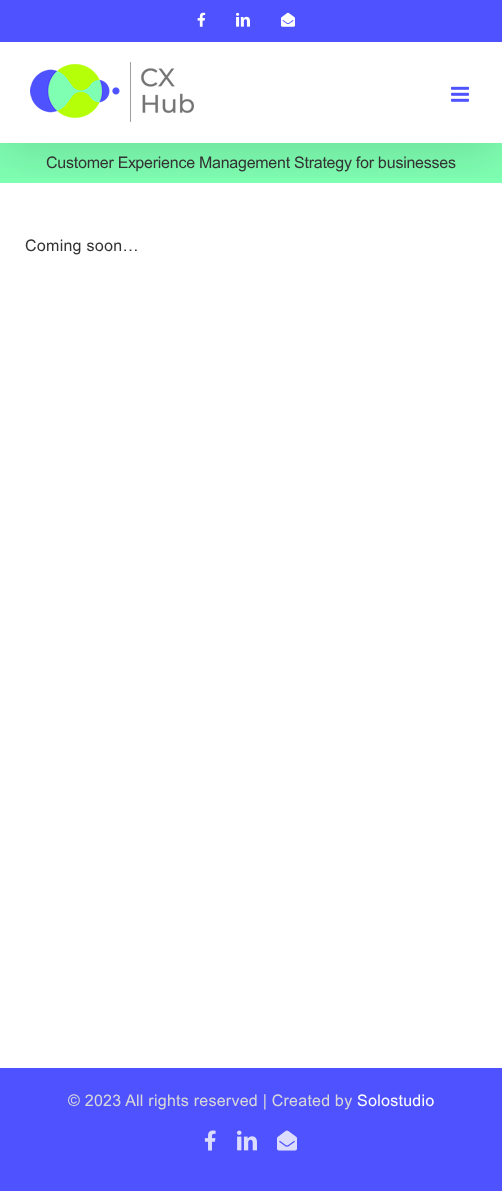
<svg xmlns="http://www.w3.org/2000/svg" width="502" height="1191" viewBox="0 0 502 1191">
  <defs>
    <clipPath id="clip1"><path d="M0 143h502v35H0z"/></clipPath>
  </defs>
  <rect width="100%" height="100%" fill="#fff"/>
  <path d="M0 143h502v40H0z" fill="#7fffb2"/>
  <g clip-path="url(#clip1)">
    <path d="M2 12h498v139H2z" fill="#00000024" filter="blur(25px)"/>
  </g>
  <path d="M0 0h502v42H0z" fill="#4f53ff"/>
  <image x="197" y="12" width="9" height="15" href="img/1.png"/>
  <image x="236" y="12" width="14" height="15" href="img/2.png"/>
  <image x="281" y="12" width="14" height="15" href="img/3.png"/>
  <image x="30" y="62" width="164" height="60" href="img/4.png"/>
  <image x="451" y="86" width="18" height="16" href="img/5.png"/>
  <path d="M0 1068h502v123H0z" fill="#4f53ff"/>
  <image x="204" y="1130" width="12" height="21" href="img/6.png"/>
  <image x="237" y="1130" width="20" height="21" href="img/7.png"/>
  <image x="277" y="1130" width="20" height="21" href="img/8.png"/>
  <text x="46" y="168" font-family="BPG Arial" font-size="16" letter-spacing="-0.25" fill="#333">Customer Experience Management Strategy for businesses</text>
  <text x="25" y="251" font-family="BPG Arial" font-size="16" letter-spacing="0.25" fill="#333">Coming soon…</text>
  <text x="68" y="1106" font-family="BPG Arial" font-size="16" letter-spacing="0.25" fill="#d8d8d8">© 2023 All rights reserved | Created by</text>
  <text x="357" y="1106" font-family="BPG Arial" font-size="16" letter-spacing="0.25" fill="#fff">Solostudio</text>
</svg>
